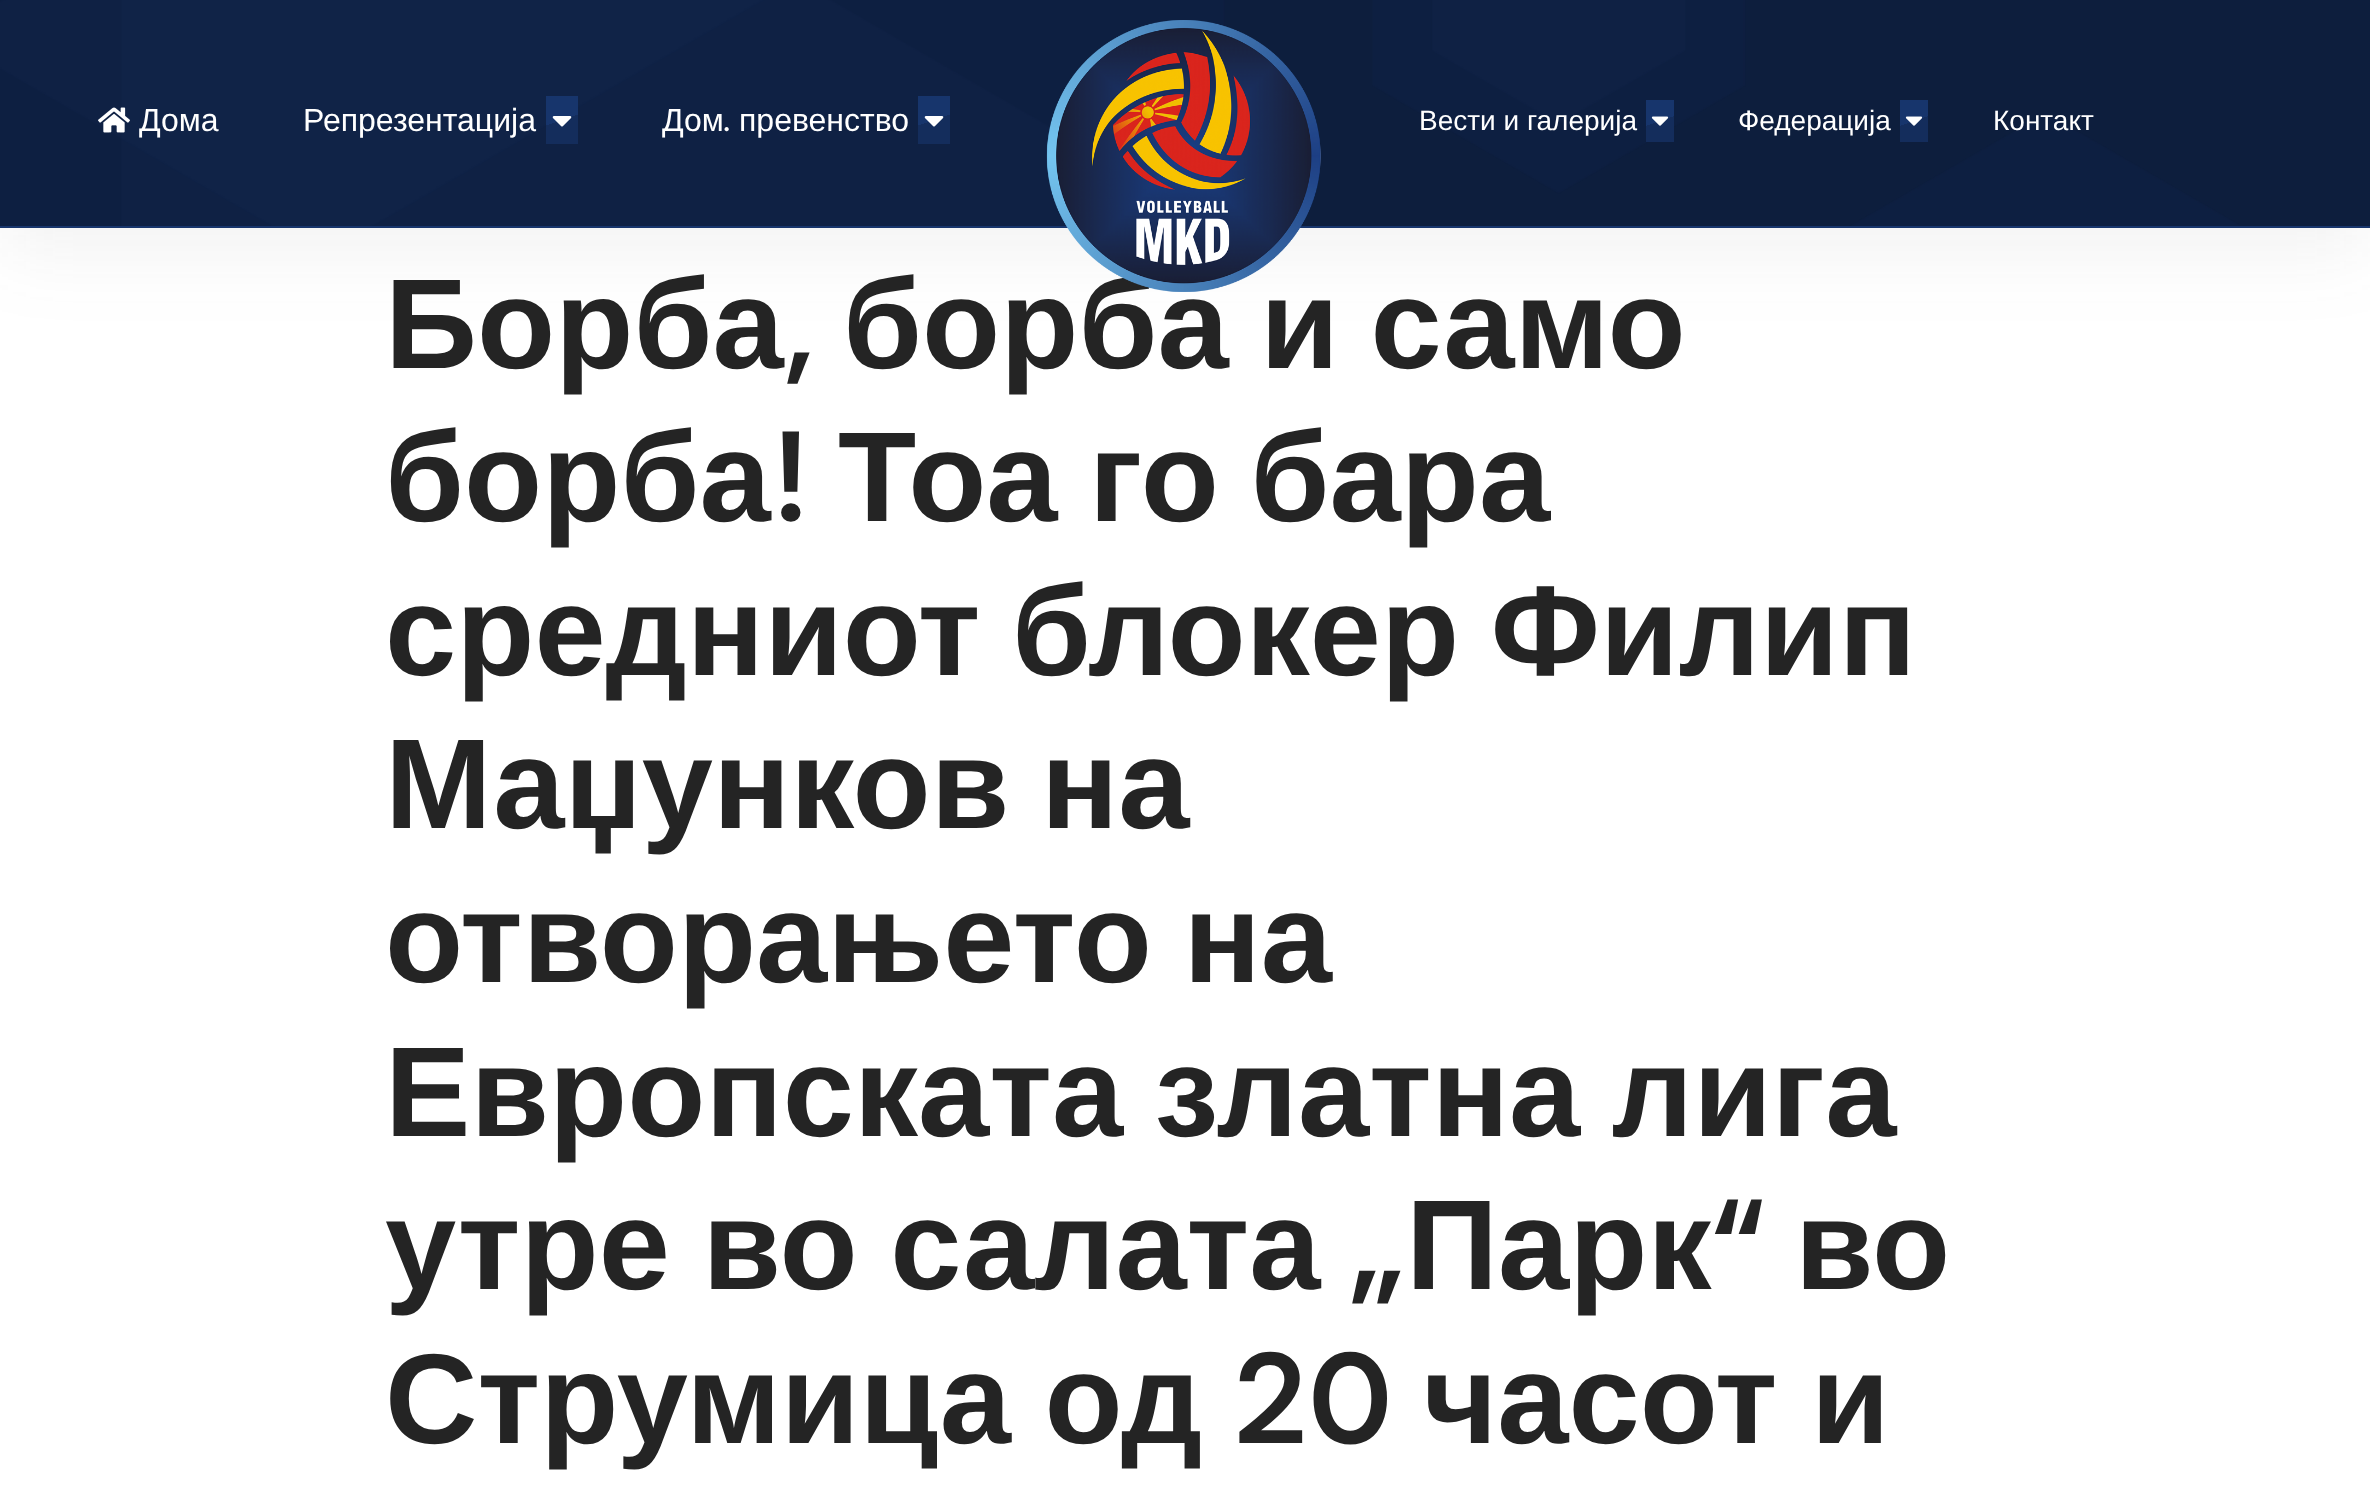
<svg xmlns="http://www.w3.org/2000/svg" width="2370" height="1490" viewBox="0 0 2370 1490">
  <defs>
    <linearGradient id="g1" gradientUnits="userSpaceOnUse" x1="553" y1="94" x2="571" y2="146"><stop offset="0.5" stop-color="#17356c"/><stop offset="0.5" stop-color="#142d5c"/></linearGradient>
    <linearGradient id="g2" gradientUnits="userSpaceOnUse" x1="925" y1="94" x2="943" y2="146"><stop offset="0.5" stop-color="#17356c"/><stop offset="0.5" stop-color="#142d5c"/></linearGradient>
    <linearGradient id="g3" gradientUnits="userSpaceOnUse" x1="1652" y1="98" x2="1668" y2="144"><stop offset="0.5" stop-color="#17356c"/><stop offset="0.5" stop-color="#142d5c"/></linearGradient>
    <linearGradient id="g4" gradientUnits="userSpaceOnUse" x1="1906" y1="98" x2="1922" y2="144"><stop offset="0.5" stop-color="#17356c"/><stop offset="0.5" stop-color="#142d5c"/></linearGradient>
  </defs>
  <rect width="100%" height="100%" fill="#fff"/>
  <path d="M0 20h2370v228H0z" fill="#47474714" filter="blur(40px)"/>
  <path d="M0 0h2370v226H0z" fill="#0d1e3d"/>
  <image x="0" y="0" width="2240" height="226" href="img/1.png"/>
  <path d="M0 226h2370v2H0z" fill="#17356c"/>
  <image x="98" y="107" width="32" height="26" href="img/2.png"/>
  <path d="M546 96h32v48H546z" fill="url(#g1)"/>
  <image x="552" y="116" width="20" height="11" href="img/3.png"/>
  <path d="M918 96h32v48H918z" fill="url(#g2)"/>
  <image x="924" y="116" width="20" height="11" href="img/3.png"/>
  <path d="M1646 100h28v42H1646z" fill="url(#g3)"/>
  <image x="1651" y="116" width="18" height="10" href="img/5.png"/>
  <path d="M1900 100h28v42H1900z" fill="url(#g4)"/>
  <image x="1905" y="116" width="18" height="10" href="img/5.png"/>
  <g font-family="Liberation Sans" font-size="32" fill="#fff">
    <text x="139" y="131">Дома</text>
    <text x="303" y="131">Репрезентација</text>
    <text x="662" y="131">Дом</text>
  </g>
  <text x="723" y="131" font-family="DM Sans" font-size="32" font-weight="500" fill="#fff">.</text>
  <text x="739" y="131" font-family="Liberation Sans" font-size="32" fill="#fff">превенство</text>
  <g font-family="Liberation Sans" font-size="28" fill="#fff">
    <text x="1419" y="130">Вести и галерија</text>
    <text x="1738" y="130">Федерација</text>
    <text x="1993" y="130">Контакт</text>
  </g>
  <text x="385" y="368" font-family="Liberation Sans" font-size="128" font-weight="bold" fill="#242424">Борба</text>
  <text x="784" y="368" font-family="DM Sans" font-size="128" font-weight="600" fill="#242424">,</text>
  <text x="843" y="368" word-spacing="-4" font-family="Liberation Sans" font-size="128" font-weight="bold" fill="#242424">борба и само</text>
  <image x="1046" y="20" width="275" height="272" href="img/4.png"/>
  <text x="385" y="521" font-family="Liberation Sans" font-size="128" font-weight="bold" fill="#242424">борба</text>
  <text x="771" y="521" font-family="DM Sans" font-size="128" font-weight="600" fill="#242424">!</text>
  <g font-family="Liberation Sans" font-size="128" font-weight="bold" fill="#242424">
    <text x="838" y="521" word-spacing="-4">Тоа го бара</text>
    <text x="385" y="675" word-spacing="-4">средниот блокер Филип</text>
    <text x="385" y="828" word-spacing="-4">Маџунков на</text>
    <text x="385" y="982" word-spacing="-4">отворањето на</text>
    <text x="385" y="1136" word-spacing="-4">Европската златна лига</text>
    <text x="385" y="1289" word-spacing="-3">утре во салата</text>
  </g>
  <text x="1349" y="1289" font-family="DM Sans" font-size="128" font-weight="600" fill="#242424">„</text>
  <text x="1406" y="1289" font-family="Liberation Sans" font-size="128" font-weight="bold" fill="#242424">Парк</text>
  <text x="1711" y="1289" font-family="DM Sans" font-size="128" font-weight="600" fill="#242424">“</text>
  <g font-family="Liberation Sans" font-size="128" font-weight="bold" fill="#242424">
    <text x="1795" y="1289">во</text>
    <text x="385" y="1443" word-spacing="-2">Струмица од</text>
  </g>
  <text x="1232" y="1443" font-family="DM Sans" font-size="128" font-weight="600" fill="#242424">20</text>
  <text x="1423" y="1443" word-spacing="-2" font-family="Liberation Sans" font-size="128" font-weight="bold" fill="#242424">часот и</text>
</svg>
